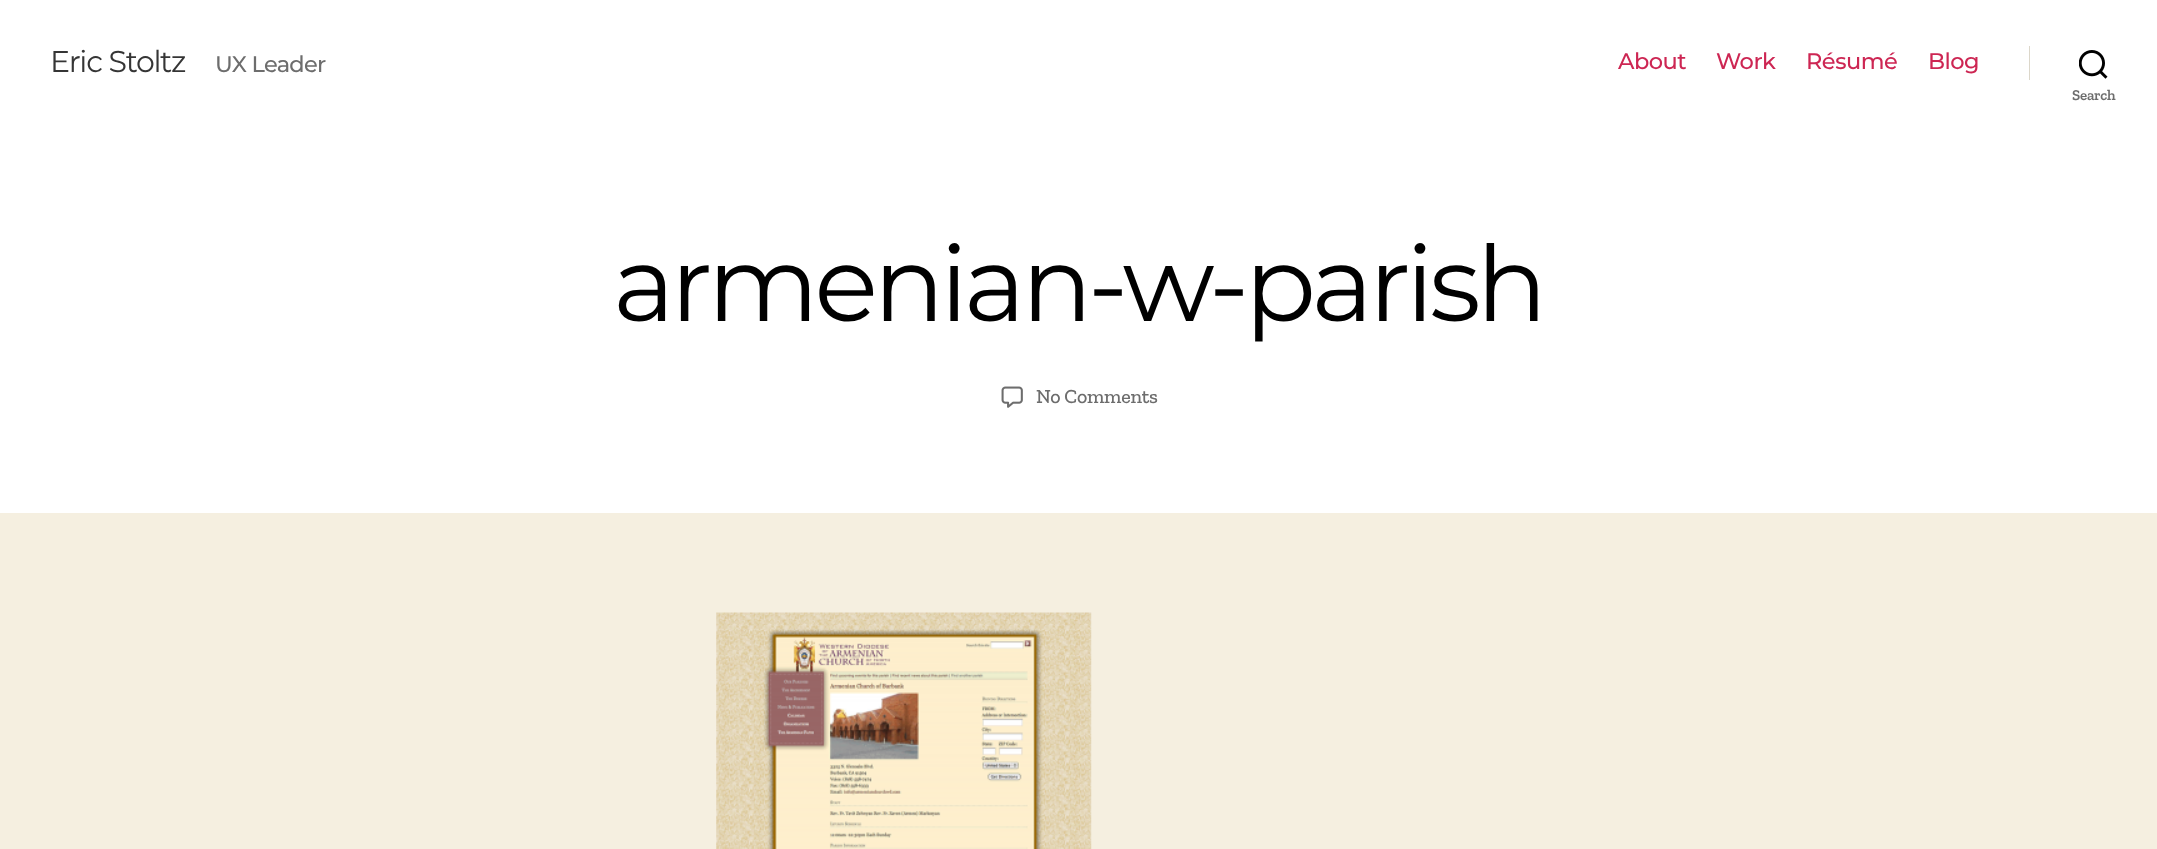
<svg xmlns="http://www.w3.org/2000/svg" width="2157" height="849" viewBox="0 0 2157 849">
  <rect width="100%" height="100%" fill="#f5efe0"/>
  <path d="M0 0h2157v513H0z" fill="#fff"/>
  <path d="M2029 46h1v34H2029z" fill="#dcd7ca"/>
  <image x="2079" y="50" width="29" height="29" href="img/1.png"/>
  <image x="1001" y="386" width="22" height="22" href="img/2.png"/>
  <image x="716" y="612" width="376" height="237" href="img/3.png"/>
  <text x="50" y="72" font-family="Montserrat" font-size="30" letter-spacing="-1.25" fill="#353535">Eric Stoltz</text>
  <text x="215" y="72" font-family="Montserrat" font-size="22.5" font-weight="500" letter-spacing="-0.75" fill="#6d6d6d">UX Leader</text>
  <g font-family="Montserrat" font-size="22.5" font-weight="500" letter-spacing="-0.5" fill="#cd2653">
    <text x="1618" y="69">About</text>
    <text x="1716" y="69">Work</text>
    <text x="1806" y="69">Résumé</text>
    <text x="1928" y="69">Blog</text>
  </g>
  <text x="2072" y="100" font-family="Zilla Slab" font-size="15" font-weight="600" letter-spacing="-0.25" fill="#6d6d6d">Search</text>
  <text x="613" y="321" font-family="Montserrat" font-size="105" letter-spacing="-4.4" fill="#000">armenian-w-parish</text>
  <text x="1036" y="403" font-family="Zilla Slab" font-size="20" font-weight="500" letter-spacing="-0.25" fill="#6d6d6d">No Comments</text>
</svg>
